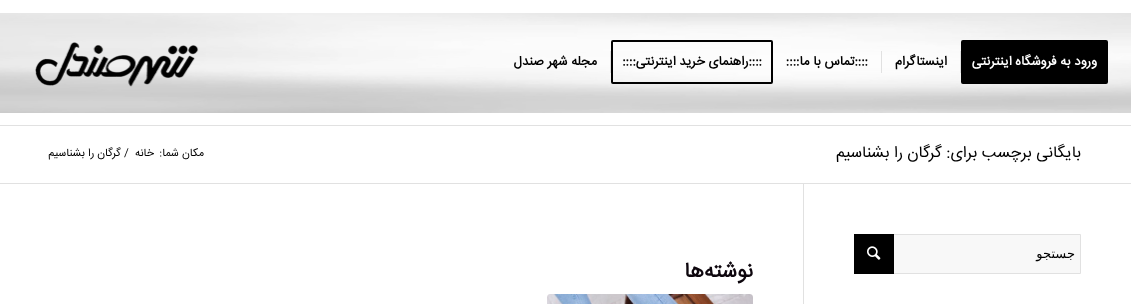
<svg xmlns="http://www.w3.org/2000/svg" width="1131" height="304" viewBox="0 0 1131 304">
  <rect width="100%" height="100%" fill="#fff"/>
  <image x="0" y="13" width="1131" height="100" href="img/1.png"/>
  <path d="M0 125h1131v1H0z" fill="#e1e1e1"/>
  <rect x="962" y="41" width="145" height="42" rx="1" fill="#000" stroke="#000" stroke-width="2"/>
  <path d="M960 51h1v22H960z" fill="#e1e1e1"/>
  <path d="M881 51h1v22H881z" fill="#e1e1e1"/>
  <rect x="612" y="41" width="160" height="42" rx="1" fill="none" stroke="#000" stroke-width="2"/>
  <path d="M610 51h1v22H610z" fill="#e1e1e1"/>
  <image x="35" y="42" width="164" height="45" href="img/2.png"/>
  <path d="M0 183h1131v1H0z" fill="#e1e1e1"/>
  <path d="M894 235h186v38H894z" fill="#f8f8f8"/>
  <path d="M854.5 234.5h226v39H854.5z" fill="none" stroke="#e1e1e1"/>
  <path d="M854 234h40v40H854z" fill="#000"/>
  <image x="867" y="246" width="14" height="14" href="img/3.png"/>
  <path d="M803 184h1v120H803z" fill="#e1e1e1"/>
  <rect x="547" y="294" width="206" height="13" rx="3" fill="#f8f8f8"/>
  <image x="547" y="294" width="206" height="10" href="img/4.png"/>
  <text x="1097" y="65" font-family="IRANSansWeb" font-size="13" font-weight="bold" direction="rtl" fill="#fff">ورود به فروشگاه اینترنتی</text>
  <g font-family="IRANSansWeb" font-size="13" font-weight="bold" direction="rtl" fill="#000">
    <text x="947" y="65">اینستاگرام</text>
    <text x="868" y="65">::::تماس با ما::::</text>
    <text x="762" y="65">::::راهنمای خرید اینترنتی::::</text>
    <text x="597" y="65">مجله شهر صندل</text>
  </g>
  <text x="1081" y="157" font-family="IRANSansWeb" font-size="16" direction="rtl" fill="#000">بایگانی برچسب برای: گرگان را بشناسیم</text>
  <g font-family="IRANSansWeb" font-size="11" direction="rtl" fill="#000">
    <text x="204" y="156">مکان شما:</text>
    <text x="154" y="156">خانه</text>
  </g>
  <text x="124" y="156" font-family="IRANSansWeb" font-size="11" fill="#000">/</text>
  <text x="121" y="156" font-family="IRANSansWeb" font-size="11" direction="rtl" fill="#000">گرگان را بشناسیم</text>
  <text x="1075" y="258" font-family="DejaVu Sans" font-size="13" direction="rtl" fill="#000">جستجو</text>
  <text x="753" y="277" font-family="IRANSansWeb" font-size="21" font-weight="bold" direction="rtl" fill="#0d060d">نوشته‌ها</text>
</svg>
